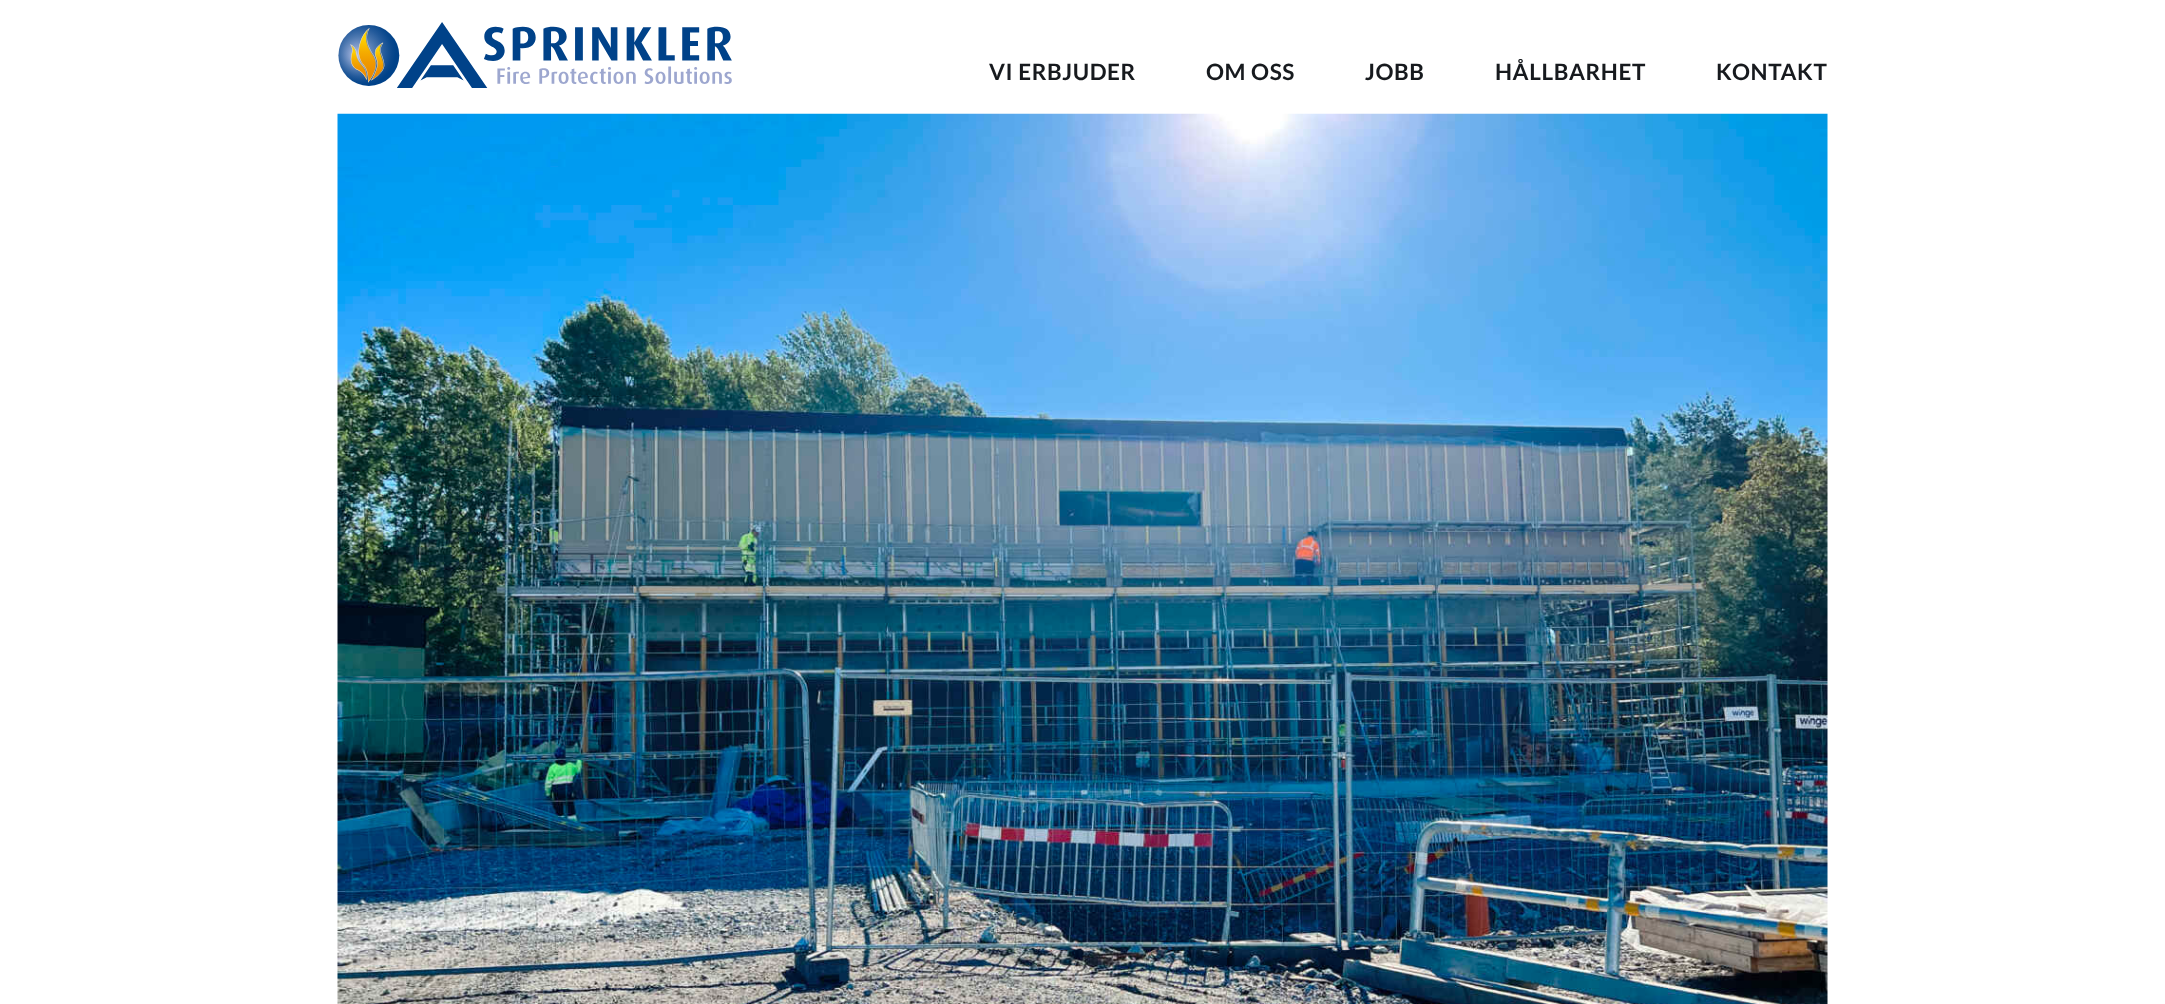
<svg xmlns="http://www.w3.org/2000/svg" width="2165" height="1004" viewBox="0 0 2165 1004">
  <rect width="100%" height="100%" fill="#fff"/>
  <image x="338" y="22" width="394" height="66" href="img/1.png"/>
  <image x="337" y="113" width="1491" height="891" href="img/2.png"/>
  <g font-family="Lato" font-size="22.5" font-weight="bold" letter-spacing="0.6" fill="#171a1e">
    <text x="989" y="80">VI ERBJUDER</text>
    <text x="1206" y="80">OM OSS</text>
    <text x="1365" y="80">JOBB</text>
    <text x="1495" y="80">HÅLLBARHET</text>
    <text x="1716" y="80">KONTAKT</text>
  </g>
</svg>
